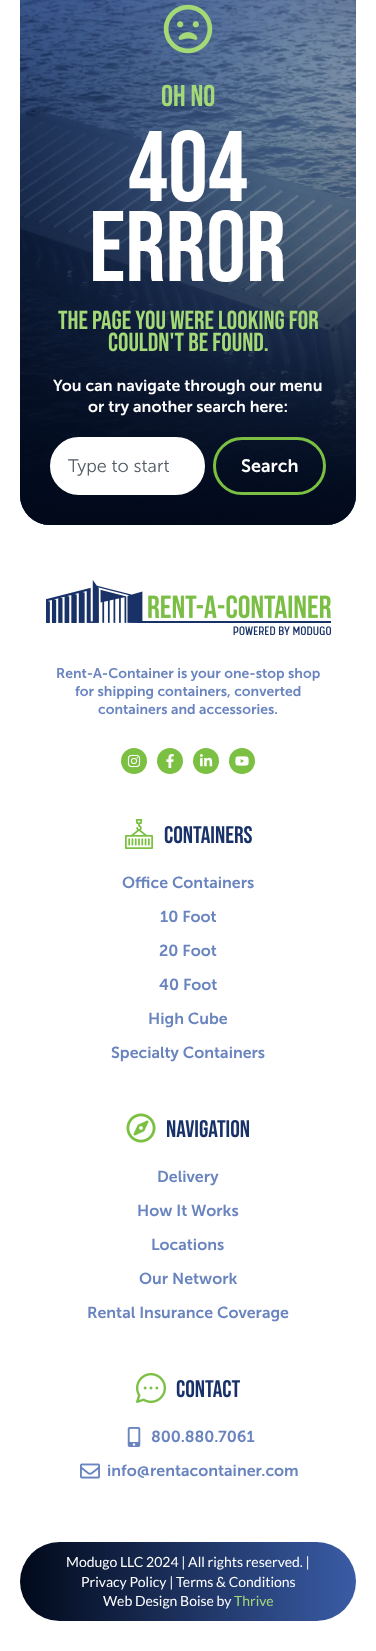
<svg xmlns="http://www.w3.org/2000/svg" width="376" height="1651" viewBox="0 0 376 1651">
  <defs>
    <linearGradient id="g1" gradientUnits="userSpaceOnUse" x1="188" y1="-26" x2="188" y2="525"><stop offset="0" stop-color="#01091a" stop-opacity="0"/><stop offset="1" stop-color="#01091a"/></linearGradient>
    <linearGradient id="g2" gradientUnits="userSpaceOnUse" x1="20" y1="1582" x2="356" y2="1582"><stop offset="0" stop-color="#01091a"/><stop offset="1" stop-color="#3a5ca6"/></linearGradient>
  </defs>
  <rect width="100%" height="100%" fill="#fff"/>
  <rect x="20" y="-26" width="336" height="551" rx="30" fill="#183269"/>
  <image x="20" y="0" width="336" height="525" href="img/1.png"/>
  <rect x="20" y="-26" width="336" height="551" rx="30" fill="url(#g1)"/>
  <image x="163" y="4" width="50" height="50" href="img/2.png"/>
  <rect x="51" y="438" width="153" height="56" rx="28" fill="#fff" stroke="#fff" stroke-width="2"/>
  <rect x="214.5" y="438.5" width="110" height="55" rx="27.5" fill="none" stroke="#7bc043" stroke-width="3"/>
  <image x="46" y="580" width="285" height="55" href="img/3.png"/>
  <circle cx="134" cy="761" r="13" fill="#7bc043"/>
  <image x="127" y="754" width="14" height="14" href="img/4.png"/>
  <circle cx="170" cy="761" r="13" fill="#7bc043"/>
  <image x="166" y="754" width="8" height="14" href="img/5.png"/>
  <circle cx="206" cy="761" r="13" fill="#7bc043"/>
  <image x="199" y="754" width="14" height="13" href="img/6.png"/>
  <circle cx="242" cy="761" r="13" fill="#7bc043"/>
  <image x="235" y="756" width="14" height="10" href="img/7.png"/>
  <image x="125" y="819" width="28" height="30" href="img/8.png"/>
  <image x="126" y="1113" width="30" height="30" href="img/9.png"/>
  <image x="136" y="1373" width="30" height="30" href="img/10.png"/>
  <image x="127" y="1427" width="14" height="20" href="img/11.png"/>
  <image x="80" y="1463" width="20" height="16" href="img/12.png"/>
  <rect x="20" y="1542" width="336" height="79" rx="39.5" fill="url(#g2)"/>
  <text x="161" y="106" font-family="Bebas Neue" font-size="30" fill="#a3d977">Oh no</text>
  <g font-family="Bebas Neue" font-size="100" fill="#fff">
    <text x="128" y="201">404</text>
    <text x="89" y="281">error</text>
  </g>
  <g font-family="Bebas Neue" font-size="26" fill="#a3d977">
    <text x="58" y="329">The page you were looking for</text>
    <text x="108" y="351">couldn't be found.</text>
  </g>
  <g font-family="'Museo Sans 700'" font-size="16" font-weight="600" fill="#fff">
    <text x="53" y="391">You can navigate through our menu</text>
    <text x="88" y="412">or try another search here:</text>
  </g>
  <text x="68" y="472" font-family="'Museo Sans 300'" font-size="18" font-weight="300" fill="#515962">Type to start</text>
  <text x="241" y="472" font-family="'Museo Sans 700'" font-size="18" font-weight="600" fill="#fff">Search</text>
  <g font-family="'Museo Sans 700'" font-size="14" font-weight="600" fill="#6984bf">
    <text x="56" y="678">Rent-A-Container is your one-stop shop</text>
    <text x="75" y="696">for shipping containers, converted</text>
    <text x="98" y="714">containers and accessories.</text>
  </g>
  <text x="164" y="843" font-family="Bebas Neue" font-size="24" fill="#183269">Containers</text>
  <g font-family="'Museo Sans 700'" font-size="16" font-weight="600" fill="#6984bf">
    <text x="122" y="888">Office Containers</text>
    <text x="160" y="922">10 Foot</text>
    <text x="159" y="956">20 Foot</text>
    <text x="159" y="990">40 Foot</text>
    <text x="148" y="1024">High Cube</text>
    <text x="111" y="1058">Specialty Containers</text>
  </g>
  <text x="166" y="1137" font-family="Bebas Neue" font-size="24" fill="#183269">Navigation</text>
  <g font-family="'Museo Sans 700'" font-size="16" font-weight="600" fill="#6984bf">
    <text x="157" y="1182">Delivery</text>
    <text x="137" y="1216">How It Works</text>
    <text x="151" y="1250">Locations</text>
    <text x="139" y="1284">Our Network</text>
    <text x="87" y="1318">Rental Insurance Coverage</text>
  </g>
  <text x="176" y="1397" font-family="Bebas Neue" font-size="24" fill="#183269">Contact</text>
  <g font-family="'Museo Sans 700'" font-size="16" font-weight="600" fill="#6984bf">
    <text x="151" y="1442">800.880.7061</text>
    <text x="107" y="1476">info@rentacontainer.com</text>
  </g>
  <g font-family="Lato" font-size="14" fill="#fff">
    <text x="66" y="1567">Modugo LLC 2024 | All rights reserved. |</text>
    <text x="81" y="1587">Privacy Policy | Terms &amp; Conditions</text>
    <text x="103" y="1606">Web Design Boise by</text>
  </g>
  <text x="234" y="1606" font-family="Lato" font-size="14" fill="#a3d977">Thrive</text>
</svg>
